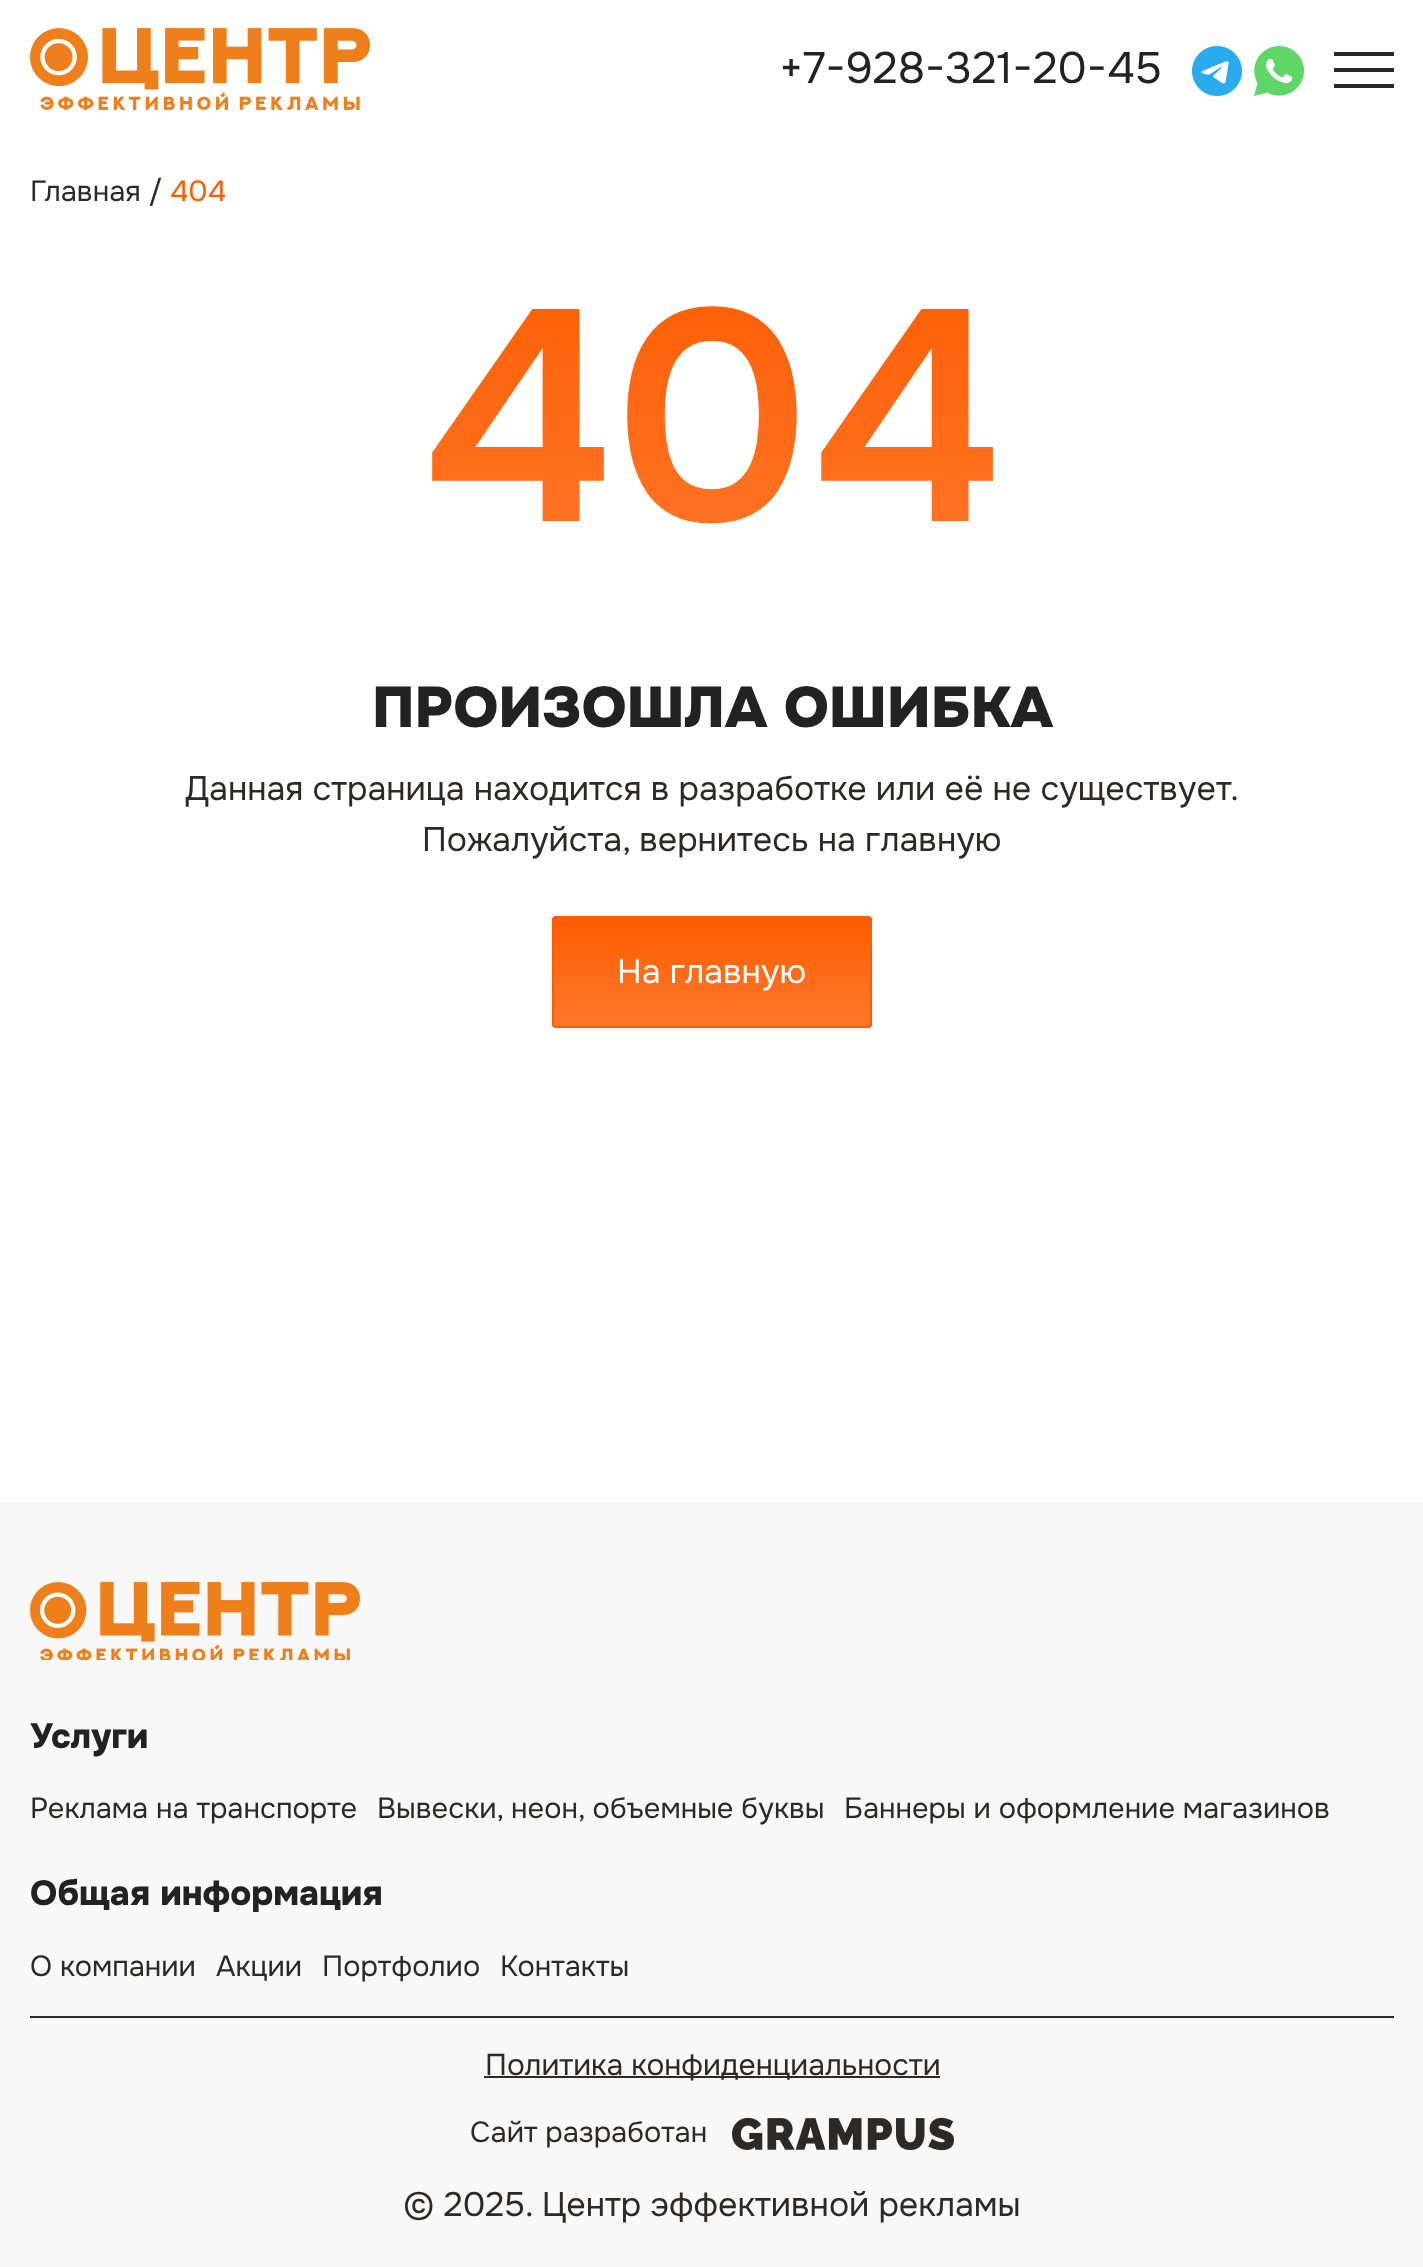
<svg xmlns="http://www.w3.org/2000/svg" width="1423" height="2267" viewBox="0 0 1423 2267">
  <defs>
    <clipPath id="clip1"><rect x="552" y="916" width="320" height="112" rx="4"/></clipPath>
    <linearGradient id="g1" gradientUnits="userSpaceOnUse" x1="712" y1="918" x2="712" y2="1026"><stop offset="0" stop-color="#fd5c00"/><stop offset="1" stop-color="#ff782b"/></linearGradient>
    <linearGradient id="g2" gradientUnits="userSpaceOnUse" x1="712" y1="241" x2="712" y2="601"><stop offset="0" stop-color="#fd5c00"/><stop offset="1" stop-color="#ff782b"/></linearGradient>
  </defs>
  <rect width="100%" height="100%" fill="#fff"/>
  <image x="30" y="28" width="340" height="82" href="img/1.png"/>
  <image x="1192" y="46" width="50" height="50" href="img/2.png"/>
  <image x="1254" y="46" width="50" height="50" href="img/3.png"/>
  <path d="M1334 68h60v4H1334z" fill="#2b2a29"/>
  <path d="M1334 52h60v4H1334z" fill="#2b2a29"/>
  <path d="M1334 84h60v4H1334z" fill="#2b2a29"/>
  <g clip-path="url(#clip1)">
    <path d="M552 918h320v108H552z" fill="url(#g1)"/>
  </g>
  <rect x="553" y="917" width="318" height="110" rx="3" fill="none" stroke="#fd5c00" stroke-width="2"/>
  <path d="M0 1502h1423v765H0z" fill="#f8f8f8"/>
  <image x="30" y="1582" width="330" height="78" href="img/4.png"/>
  <path d="M30 2016h1364v2H30z" fill="#2b2a29"/>
  <path d="M484 2076h456v2H484z" fill="#2b2a29"/>
  <image x="732" y="2117" width="222" height="34" href="img/5.png"/>
  <text x="779" y="83" font-family="Onest" font-size="44" fill="#222">+7-928-321-20-45</text>
  <text x="30" y="201" font-family="Onest" font-size="29" fill="#2b2a29">Главная /</text>
  <text x="170" y="201" font-family="Onest" font-size="29" fill="#fd5c00">404</text>
  <text x="422" y="521" font-family="Onest" font-size="300" font-weight="600" fill="url(#g2)">404</text>
  <text x="372" y="727" font-family="Onest" font-size="57.25" font-weight="900" fill="#222">ПРОИЗОШЛА ОШИБКА</text>
  <g font-family="Onest" font-size="33.95" fill="#2b2a29">
    <text x="185" y="800">Данная страница находится в разработке или её не существует.</text>
    <text x="422" y="851">Пожалуйста, вернитесь на главную</text>
  </g>
  <text x="617" y="983" font-family="Onest" font-size="33.95" fill="#fff">На главную</text>
  <text x="30" y="1748" font-family="Onest" font-size="35" font-weight="800" fill="#222">Услуги</text>
  <g font-family="Onest" font-size="29" fill="#2b2a29">
    <text x="30" y="1818">Реклама на транспорте</text>
    <text x="377" y="1818">Вывески, неон, объемные буквы</text>
    <text x="844" y="1818">Баннеры и оформление магазинов</text>
  </g>
  <text x="30" y="1905" font-family="Onest" font-size="35" font-weight="800" fill="#222">Общая информация</text>
  <g font-family="Onest" font-size="29" fill="#2b2a29">
    <text x="30" y="1976">О компании</text>
    <text x="216" y="1976">Акции</text>
    <text x="322" y="1976">Портфолио</text>
    <text x="500" y="1976">Контакты</text>
  </g>
  <text x="485" y="2075" font-family="Onest" font-size="30" fill="#2b2a29">Политика конфиденциальности</text>
  <text x="470" y="2142" font-family="Onest" font-size="29" fill="#2b2a29">Сайт разработан</text>
  <text x="403" y="2216" font-family="Onest" font-size="33.95" fill="#2b2a29">© 2025. Центр эффективной рекламы</text>
</svg>
